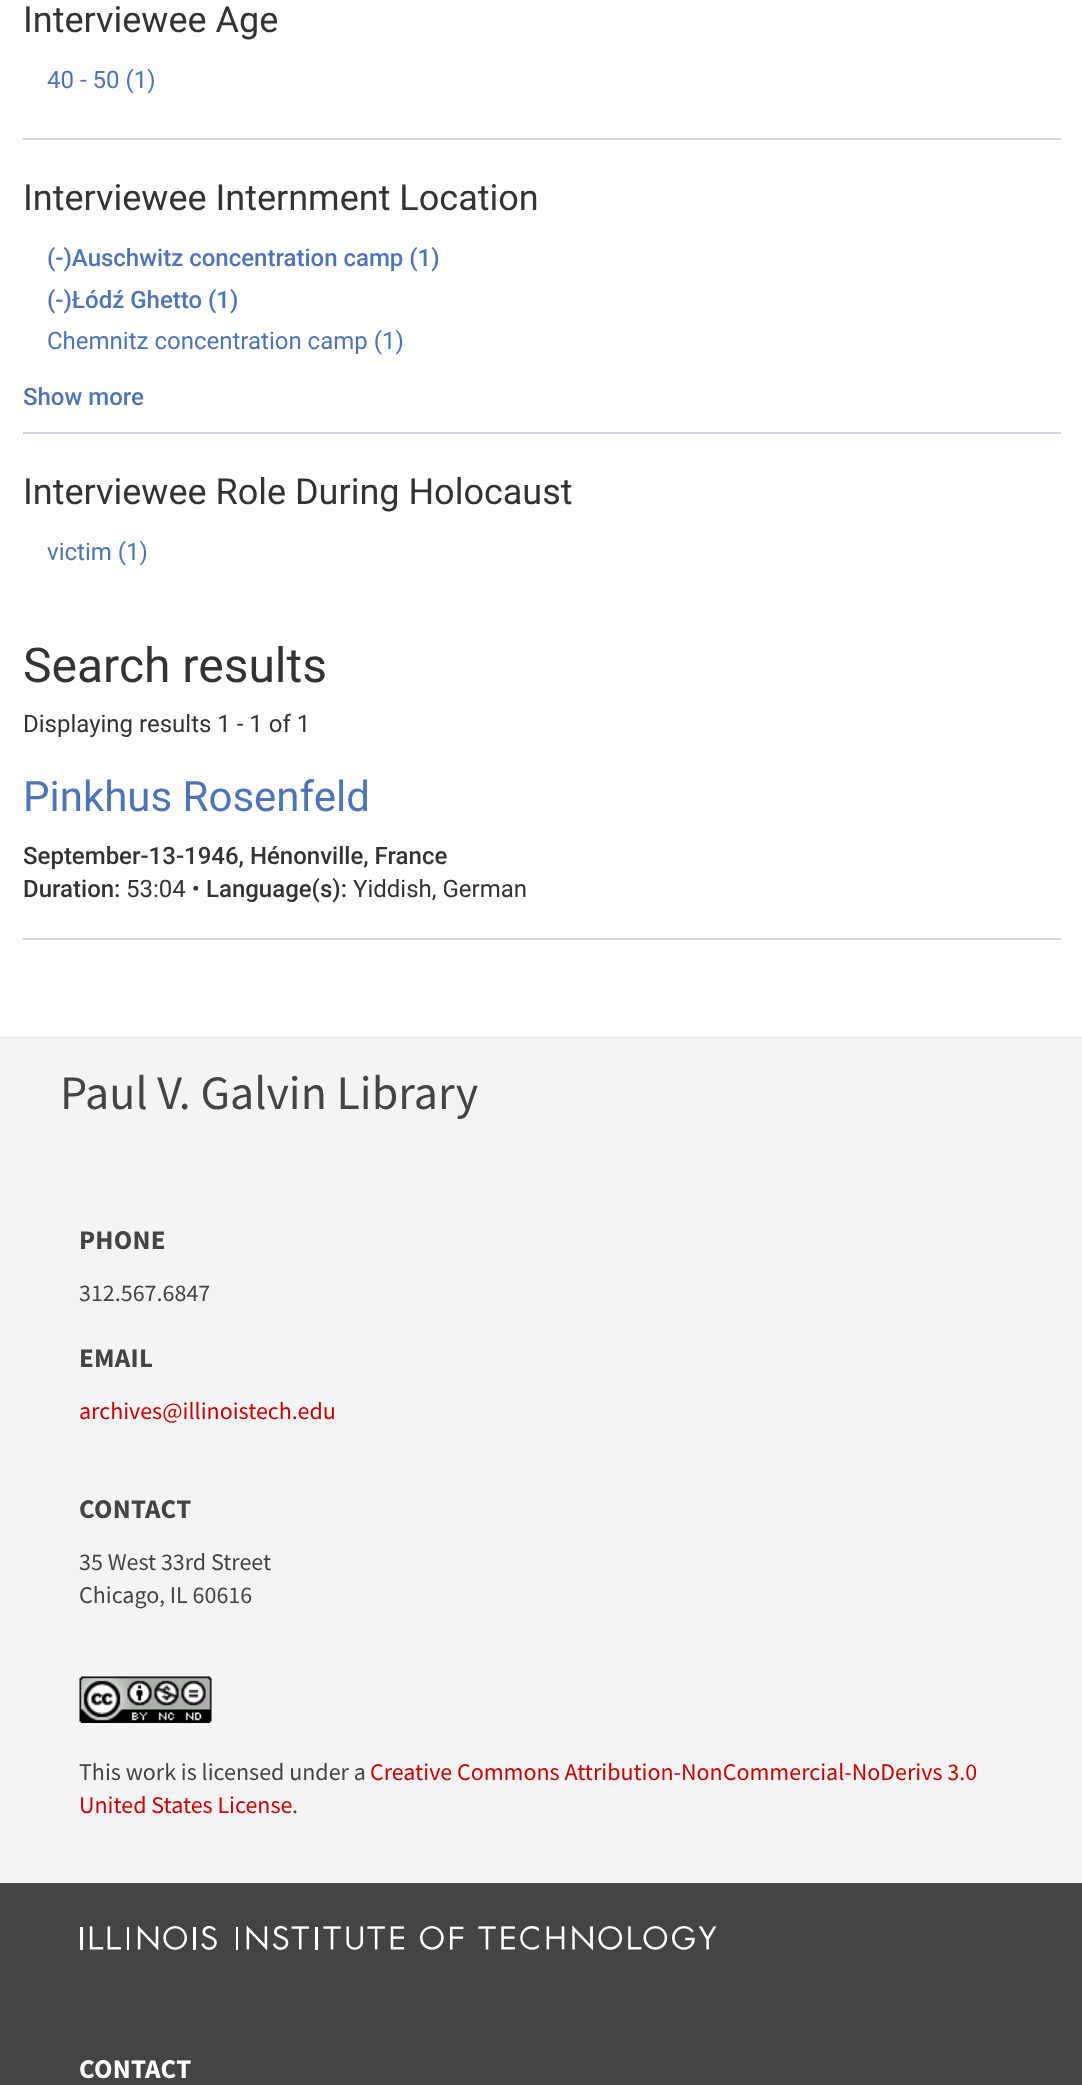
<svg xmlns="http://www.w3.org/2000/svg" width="1082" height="2085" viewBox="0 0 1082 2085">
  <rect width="100%" height="100%" fill="#fff"/>
  <path d="M23 138h1038v2H23z" fill="#ced4da"/>
  <path d="M23 432h1038v2H23z" fill="#ced4da"/>
  <path d="M23 938h1038v2H23z" fill="#ced4da"/>
  <path d="M0 1037h1082v1H0z" fill="#e5e5e5"/>
  <path d="M0 1038h1082v845H0z" fill="#f4f4f4"/>
  <image x="79" y="1676" width="133" height="47" href="img/1.png"/>
  <path d="M0 1883h1082v202H0z" fill="#444"/>
  <image x="80" y="1925" width="637" height="26" href="img/2.png"/>
  <text x="23" y="32" font-family="Roboto" font-size="36" fill="#333">Interviewee Age</text>
  <text x="47" y="88" font-family="Roboto" font-size="24" fill="#4c74b9">40 - 50 (1)</text>
  <text x="23" y="210" font-family="Roboto" font-size="36" fill="#333">Interviewee Internment Location</text>
  <g font-family="Roboto" font-size="24" font-weight="500" fill="#4c74b9">
    <text x="47" y="266">(-)Auschwitz concentration camp (1)</text>
    <text x="47" y="308">(-)Łódź Ghetto (1)</text>
  </g>
  <text x="47" y="349" font-family="Roboto" font-size="24" fill="#4c74b9">Chemnitz concentration camp (1)</text>
  <text x="23" y="405" font-family="Roboto" font-size="24" font-weight="500" fill="#4c74b9">Show more</text>
  <text x="23" y="504" font-family="Roboto" font-size="36" fill="#333">Interviewee Role During Holocaust</text>
  <text x="47" y="560" font-family="Roboto" font-size="24" fill="#4c74b9">victim (1)</text>
  <text x="23" y="682" font-family="Roboto" font-size="48" fill="#333">Search results</text>
  <text x="23" y="732" font-family="Roboto" font-size="24" fill="#333">Displaying results 1 - 1 of 1</text>
  <text x="23" y="811" font-family="Roboto" font-size="42" fill="#4c74b9">Pinkhus Rosenfeld</text>
  <g font-family="Roboto" font-size="24" font-weight="500" fill="#333">
    <text x="23" y="864">September-13-1946, Hénonville, France</text>
    <text x="23" y="897">Duration:</text>
  </g>
  <text x="126" y="897" font-family="Roboto" font-size="24" fill="#333">53:04 •</text>
  <text x="206" y="897" font-family="Roboto" font-size="24" font-weight="500" fill="#333">Language(s):</text>
  <text x="353" y="897" font-family="Roboto" font-size="24" fill="#333">Yiddish, German</text>
  <text x="60" y="1109" font-family="Source Sans Pro" font-size="48" fill="#444">Paul V. Galvin Library</text>
  <text x="79" y="1249" font-family="Source Sans Pro" font-size="27" font-weight="bold" letter-spacing="0.25" fill="#444">PHONE</text>
  <text x="79" y="1301" font-family="Source Sans Pro" font-size="24" fill="#444">312.567.6847</text>
  <text x="79" y="1367" font-family="Source Sans Pro" font-size="27" font-weight="bold" letter-spacing="0.25" fill="#444">EMAIL</text>
  <text x="79" y="1419" font-family="Source Sans Pro" font-size="24" fill="#c00">archives@illinoistech.edu</text>
  <text x="79" y="1518" font-family="Source Sans Pro" font-size="27" font-weight="bold" letter-spacing="0.25" fill="#444">CONTACT</text>
  <g font-family="Source Sans Pro" font-size="24" fill="#444">
    <text x="79" y="1570">35 West 33rd Street</text>
    <text x="79" y="1603">Chicago, IL 60616</text>
    <text x="79" y="1780">This work is licensed under a</text>
  </g>
  <g font-family="Source Sans Pro" font-size="24" fill="#c00">
    <text x="370" y="1780">Creative Commons Attribution-NonCommercial-NoDerivs 3.0</text>
    <text x="79" y="1813">United States License</text>
  </g>
  <text x="292" y="1813" font-family="Source Sans Pro" font-size="24" fill="#444">.</text>
  <text x="79" y="2078" font-family="Source Sans Pro" font-size="27" font-weight="bold" letter-spacing="0.25" fill="#fff">CONTACT</text>
</svg>
